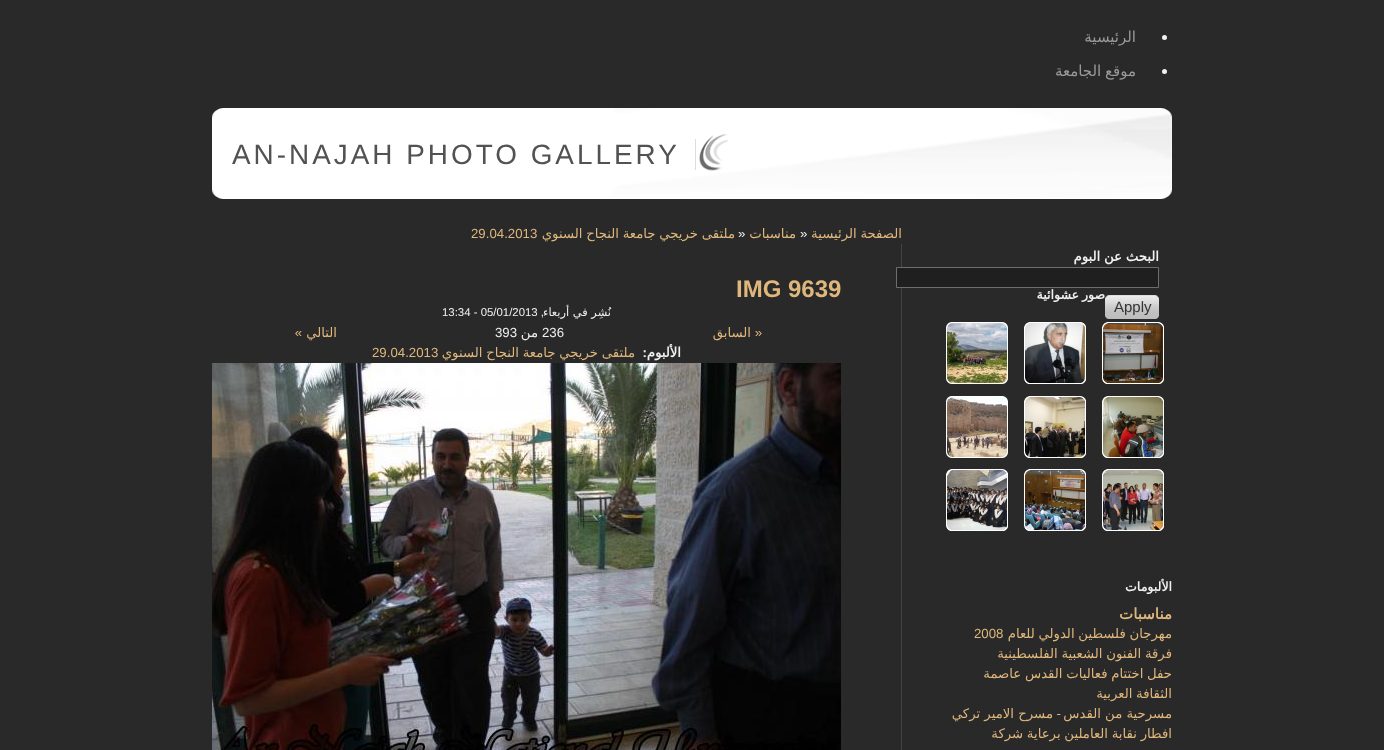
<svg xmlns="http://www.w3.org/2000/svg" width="1384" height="750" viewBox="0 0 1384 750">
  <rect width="100%" height="100%" fill="#292929"/>
  <circle cx="1164.5" cy="37.5" r="2.5" fill="#f0f0f0"/>
  <circle cx="1164.5" cy="71.5" r="2.5" fill="#f0f0f0"/>
  <image x="212" y="108" width="960" height="91" href="img/1.png"/>
  <image x="699" y="134" width="29" height="37" href="img/2.png"/>
  <path d="M695 139h1v31H695z" fill="#ddd"/>
  <path d="M901 244h1v506H901z" fill="#444"/>
  <path d="M896.5 267.5h262v20H896.5z" fill="#1f1f1f" stroke="#6d6d6d"/>
  <image x="1151" y="295" width="8" height="24" href="img/3.png"/>
  <image x="1105" y="295" width="46" height="24" href="img/4.png"/>
  <image x="1102" y="322" width="62" height="62" href="img/5.png"/>
  <image x="1024" y="322" width="62" height="62" href="img/6.png"/>
  <image x="946" y="322" width="62" height="62" href="img/7.png"/>
  <image x="1102" y="396" width="62" height="62" href="img/8.png"/>
  <image x="1024" y="396" width="62" height="62" href="img/9.png"/>
  <image x="946" y="396" width="62" height="62" href="img/10.png"/>
  <image x="1102" y="469" width="62" height="62" href="img/11.png"/>
  <image x="1024" y="469" width="62" height="62" href="img/12.png"/>
  <image x="946" y="469" width="62" height="62" href="img/13.png"/>
  <image x="212" y="363" width="629" height="387" href="img/14.png"/>
  <g font-family="DejaVu Sans" font-size="15" direction="rtl" fill="#999">
    <text x="1136" y="42">الرئيسية</text>
    <text x="1136" y="76" word-spacing="-1">موقع الجامعة</text>
  </g>
  <text x="232" y="164" font-family="Liberation Sans" font-size="27.9" letter-spacing="3" fill="#525252">AN-NAJAH PHOTO GALLERY</text>
  <text x="1159" y="261" word-spacing="-0.5" font-family="DejaVu Sans" font-size="13.25" font-weight="bold" direction="rtl" fill="#f0f0f0">البحث عن البوم</text>
  <text x="1114" y="312" font-family="Liberation Sans" font-size="15" fill="#333">Apply</text>
  <g font-family="DejaVu Sans" font-size="12.5" font-weight="bold" direction="rtl" fill="#f0f0f0">
    <text x="1105" y="299">صور</text>
    <text x="1079" y="299">عشوائية</text>
    <text x="1172" y="591">الألبومات</text>
  </g>
  <text x="1172" y="619" font-family="DejaVu Sans" font-size="15" font-weight="bold" direction="rtl" fill="#dfb77c">مناسبات</text>
  <text x="1172" y="638" word-spacing="-0.5" font-family="DejaVu Sans" font-size="13.25" direction="rtl" fill="#dfb77c">مهرجان فلسطين الدولي للعام</text>
  <text x="974" y="638" font-family="Liberation Sans" font-size="13.25" fill="#dfb77c">2008</text>
  <g font-family="DejaVu Sans" font-size="13.25" direction="rtl" fill="#dfb77c">
    <text x="1172" y="658" word-spacing="-0.5">فرقة الفنون الشعبية الفلسطينية</text>
    <text x="1172" y="678" word-spacing="-0.5">حفل اختتام فعاليات القدس عاصمة</text>
    <text x="1172" y="698" word-spacing="-0.5">الثقافة العربية</text>
    <text x="1172" y="718">مسرحية من القدس</text>
  </g>
  <text x="1061" y="718" font-family="Liberation Sans" font-size="13.25" direction="rtl" fill="#dfb77c">-</text>
  <g font-family="DejaVu Sans" font-size="13.25" direction="rtl" fill="#dfb77c">
    <text x="1053" y="718">مسرح الامير تركي</text>
    <text x="1172" y="738" word-spacing="-0.5">افطار نقابة العاملين برعاية شركة</text>
    <text x="902" y="238" word-spacing="-0.5">الصفحة الرئيسية</text>
  </g>
  <text x="800" y="238" font-family="Liberation Sans" font-size="13.25" fill="#f0f0f0">»</text>
  <text x="796" y="238" font-family="DejaVu Sans" font-size="13.25" direction="rtl" fill="#dfb77c">مناسبات</text>
  <text x="738" y="238" font-family="Liberation Sans" font-size="13.25" fill="#f0f0f0">»</text>
  <text x="735" y="238" word-spacing="-0.5" font-family="DejaVu Sans" font-size="13.25" direction="rtl" fill="#dfb77c">ملتقى خريجي جامعة النجاح السنوي</text>
  <text x="471" y="238" font-family="Liberation Sans" font-size="13.25" fill="#dfb77c">29.04.2013</text>
  <text x="736" y="297" font-family="Liberation Sans" font-size="24" font-weight="bold" fill="#dfb77c">IMG 9639</text>
  <text x="611" y="316" font-family="DejaVu Sans" font-size="11.4" direction="rtl" fill="#f0f0f0">نُشِر في أربعاء</text>
  <text x="544" y="316" font-family="Liberation Sans" font-size="11.4" direction="rtl" fill="#f0f0f0">,</text>
  <text x="442" y="316" font-family="Liberation Sans" font-size="11.4" fill="#f0f0f0">13:34 - 05/01/2013</text>
  <text x="762" y="337" font-family="Liberation Sans" font-size="13.25" direction="rtl" fill="#dfb77c">«</text>
  <text x="751" y="337" font-family="DejaVu Sans" font-size="13.25" direction="rtl" fill="#dfb77c">السابق</text>
  <text x="542" y="337" font-family="Liberation Sans" font-size="13.25" fill="#f0f0f0">236</text>
  <text x="538" y="337" font-family="DejaVu Sans" font-size="13.25" direction="rtl" fill="#f0f0f0">من</text>
  <text x="495" y="337" font-family="Liberation Sans" font-size="13.25" fill="#f0f0f0">393</text>
  <text x="337" y="337" font-family="DejaVu Sans" font-size="13.25" direction="rtl" fill="#dfb77c">التالي</text>
  <text x="302" y="337" font-family="Liberation Sans" font-size="13.25" direction="rtl" fill="#dfb77c">»</text>
  <text x="681" y="357" font-family="DejaVu Sans" font-size="13.25" font-weight="bold" direction="rtl" fill="#f0f0f0">الألبوم</text>
  <text x="647" y="357" font-family="Liberation Sans" font-size="13.25" font-weight="bold" direction="rtl" fill="#f0f0f0">:</text>
  <text x="635" y="357" word-spacing="-0.5" font-family="DejaVu Sans" font-size="13.25" direction="rtl" fill="#dfb77c">ملتقى خريجي جامعة النجاح السنوي</text>
  <text x="372" y="357" font-family="Liberation Sans" font-size="13.25" fill="#dfb77c">29.04.2013</text>
</svg>
